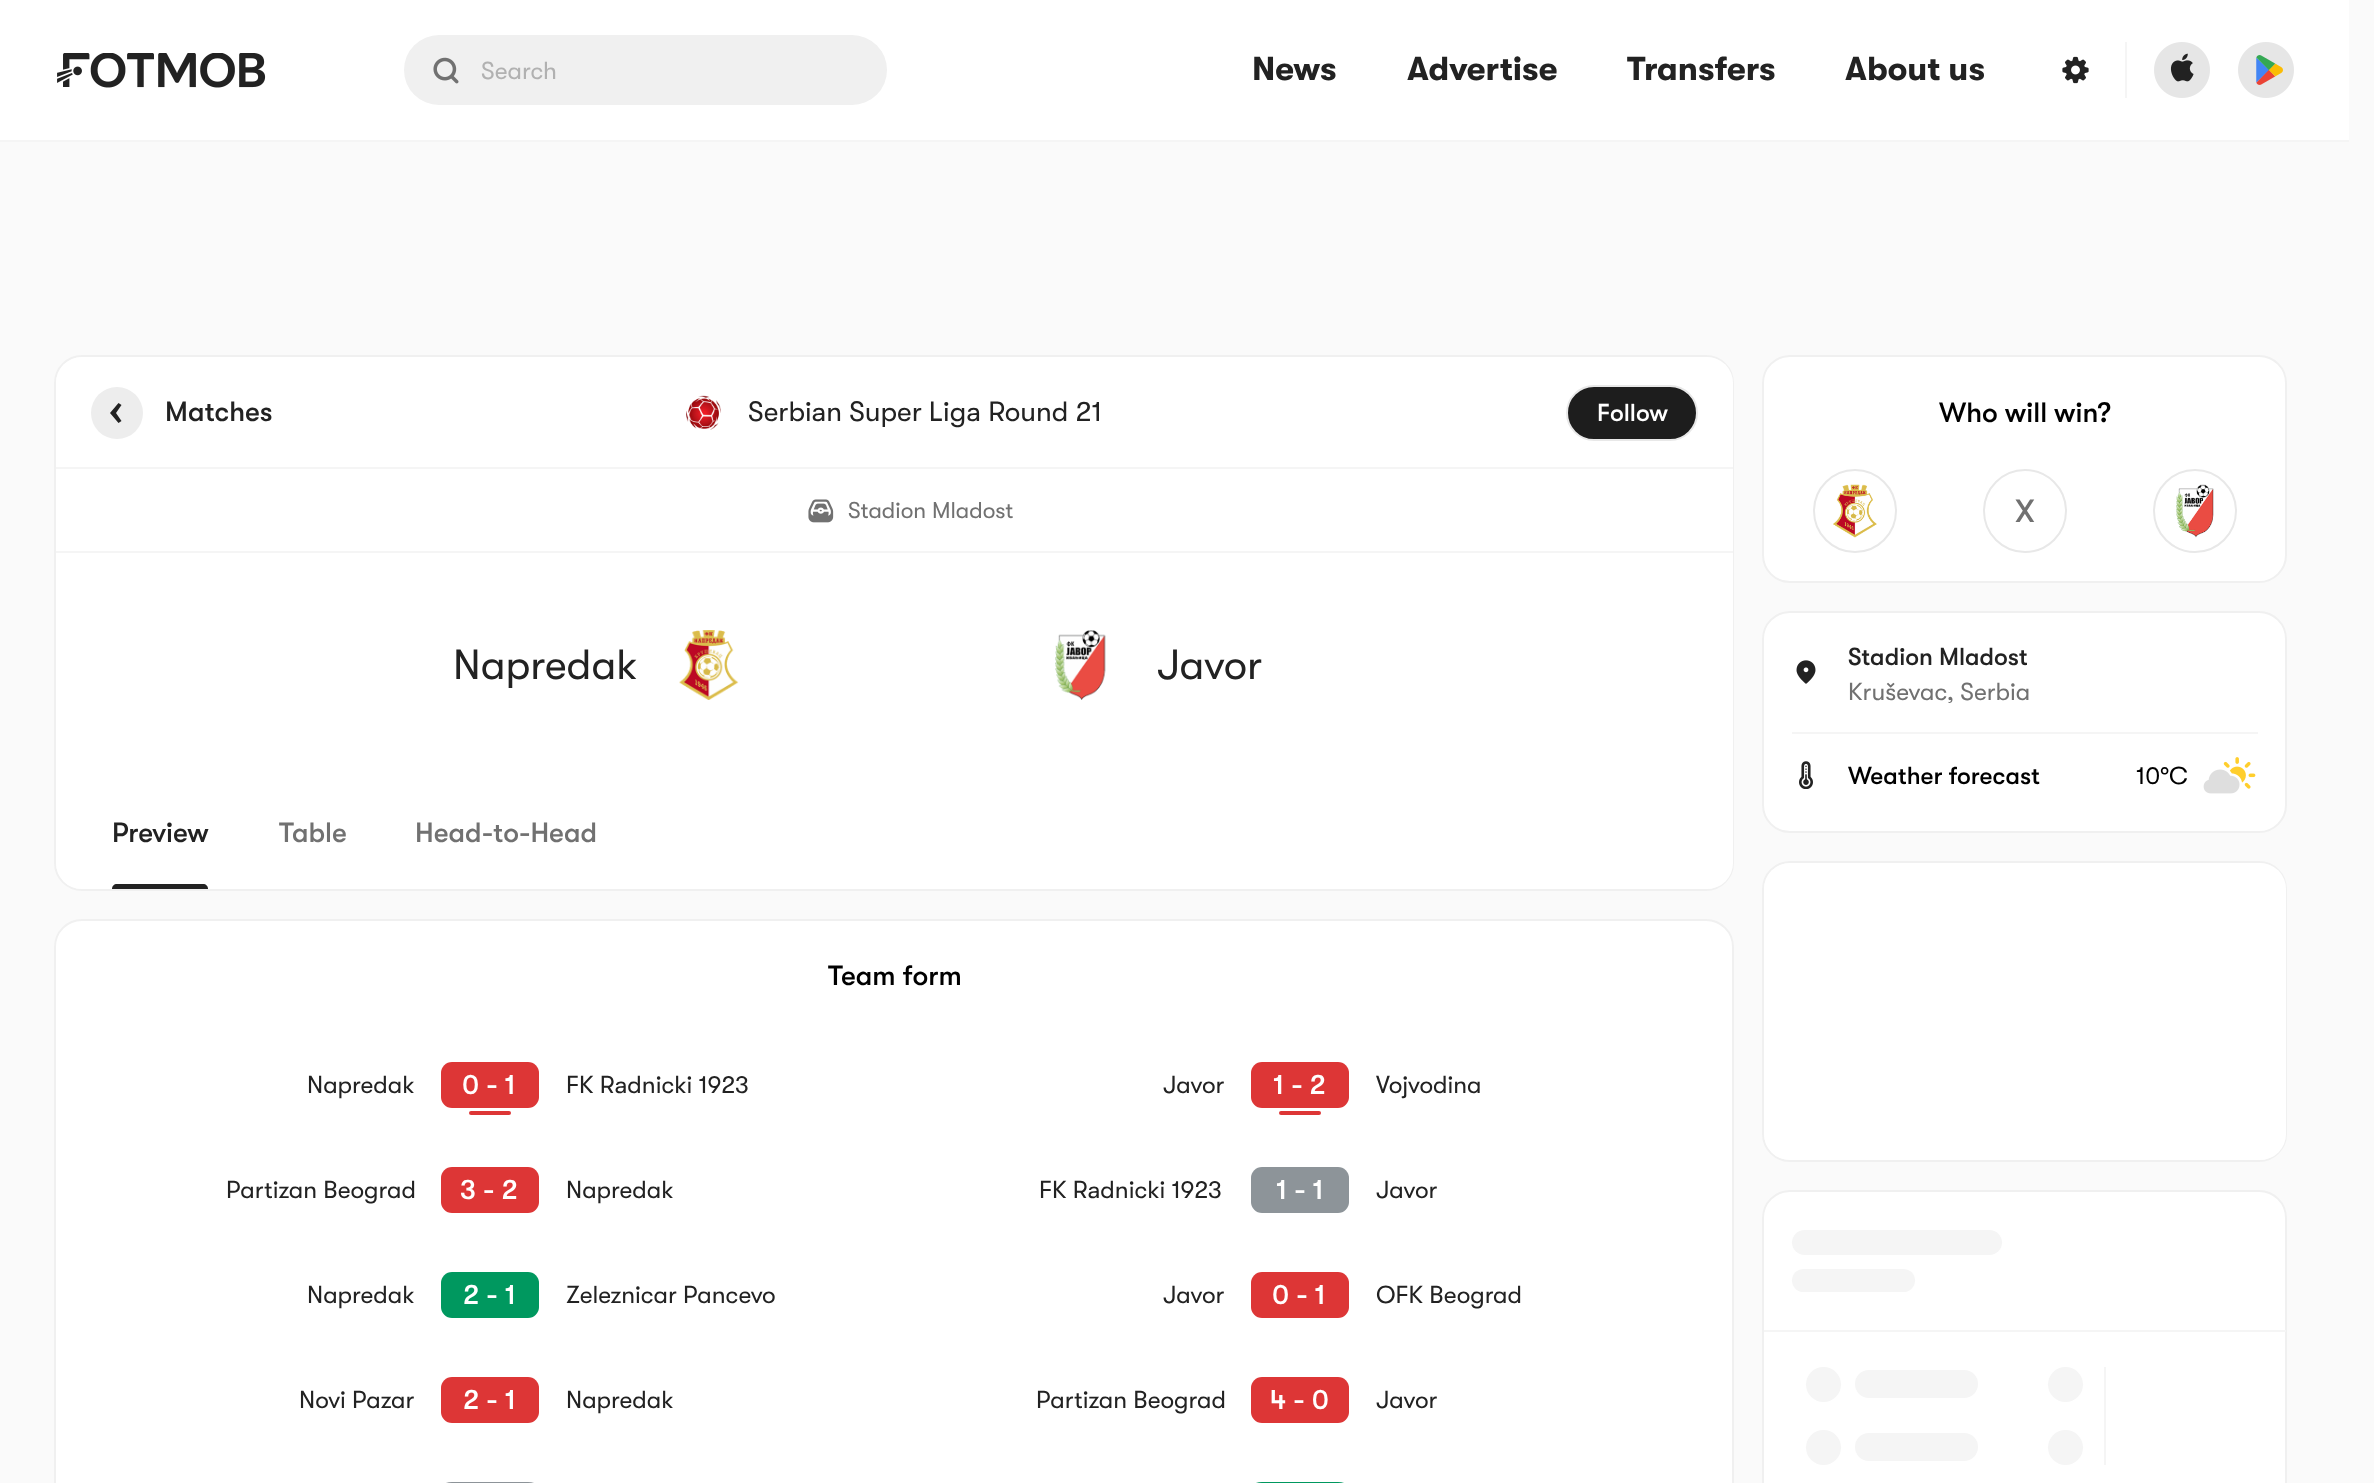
<svg xmlns="http://www.w3.org/2000/svg" width="2374" height="1483" viewBox="0 0 2374 1483">
  <rect width="100%" height="100%" fill="#fafafa"/>
  <path d="M0 140h2349v2H0z" fill="#f5f5f5"/>
  <path d="M0 0h2349v140H0z" fill="#fff"/>
  <image x="57" y="53" width="209" height="35" href="img/1.png"/>
  <rect x="404" y="35" width="483" height="70" rx="35" fill="#f0f0f0"/>
  <image x="433" y="57" width="26" height="27" href="img/2.png"/>
  <image x="2062" y="56" width="27" height="28" href="img/3.png"/>
  <path d="M2125 42h2v56H2125z" fill="#f5f5f5"/>
  <image x="2154" y="42" width="56" height="56" href="img/4.png"/>
  <image x="2238" y="42" width="56" height="56" href="img/5.png"/>
  <rect x="55" y="356" width="1678" height="534" rx="27" fill="none" stroke="#f0f0f0" stroke-width="2"/>
  <rect x="56" y="357" width="1677" height="532" rx="26" fill="#fff"/>
  <path d="M56 467h1677v2H56z" fill="#f5f5f5"/>
  <circle cx="117" cy="413" r="26" fill="#ededed"/>
  <path d="M110 413L118.5 423L121.5 421L116 413L121.5 405L118.5 403Z" fill="#222"/>
  <image x="686" y="395" width="35" height="35" href="img/6.png"/>
  <rect x="1567" y="386" width="130" height="54" rx="27" fill="#1d1d1d" stroke="#e8e8e8" stroke-width="2"/>
  <path d="M56 551h1677v2H56z" fill="#f5f5f5"/>
  <image x="808" y="499" width="26" height="24" href="img/7.png"/>
  <image x="679" y="630" width="60" height="70" href="img/8.png"/>
  <image x="1055" y="630" width="51" height="70" href="img/9.png"/>
  <path d="M117 884H203C206 884 208 886 208 889H112C112 886 114 884 117 884Z" fill="#222"/>
  <rect x="55" y="920" width="1678" height="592" rx="27" fill="#fff" stroke="#f0f0f0" stroke-width="2"/>
  <rect x="441" y="1062" width="98" height="46" rx="11" fill="#dd3636"/>
  <rect x="469" y="1111" width="42" height="4" rx="2" fill="#dd3636"/>
  <rect x="441" y="1167" width="98" height="46" rx="11" fill="#dd3636"/>
  <rect x="441" y="1272" width="98" height="46" rx="11" fill="#00985f"/>
  <rect x="441" y="1377" width="98" height="46" rx="11" fill="#dd3636"/>
  <rect x="441" y="1482" width="98" height="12" rx="11" fill="#8d9499"/>
  <rect x="1251" y="1062" width="98" height="46" rx="11" fill="#dd3636"/>
  <rect x="1279" y="1111" width="42" height="4" rx="2" fill="#dd3636"/>
  <rect x="1251" y="1167" width="98" height="46" rx="11" fill="#8d9499"/>
  <rect x="1251" y="1272" width="98" height="46" rx="11" fill="#dd3636"/>
  <rect x="1251" y="1377" width="98" height="46" rx="11" fill="#dd3636"/>
  <rect x="1251" y="1482" width="98" height="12" rx="11" fill="#00985f"/>
  <rect x="1763" y="356" width="523" height="226" rx="27" fill="#fff" stroke="#f0f0f0" stroke-width="2"/>
  <circle cx="1855" cy="511" r="41" fill="none" stroke="#e8e8e8" stroke-width="2"/>
  <image x="1833" y="484" width="44" height="54" href="img/10.png"/>
  <circle cx="2025" cy="511" r="41" fill="none" stroke="#e8e8e8" stroke-width="2"/>
  <circle cx="2195" cy="511" r="41" fill="none" stroke="#e8e8e8" stroke-width="2"/>
  <image x="2176" y="484" width="38" height="54" href="img/11.png"/>
  <rect x="1763" y="612" width="523" height="220" rx="27" fill="#fff" stroke="#f0f0f0" stroke-width="2"/>
  <path d="M1792 732h466v2H1792z" fill="#f5f5f5"/>
  <image x="1796" y="660" width="20" height="24" href="img/12.png"/>
  <image x="1799" y="761" width="14" height="28" href="img/13.png"/>
  <image x="2203" y="757" width="53" height="37" href="img/14.png"/>
  <rect x="1763" y="862" width="523" height="299" rx="27" fill="none" stroke="#f0f0f0" stroke-width="2"/>
  <rect x="1764" y="863" width="522" height="297" rx="26" fill="#fff"/>
  <rect x="1763" y="1191" width="523" height="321" rx="27" fill="#fff" stroke="#f0f0f0" stroke-width="2"/>
  <path d="M1764 1330h522v2H1764z" fill="#f5f5f5"/>
  <rect x="1792" y="1230" width="210" height="25" rx="12.5" fill="#f5f5f5"/>
  <rect x="1792" y="1269" width="123" height="23" rx="11.5" fill="#f5f5f5"/>
  <circle cx="1823.5" cy="1384.5" r="17.5" fill="#f5f5f5"/>
  <rect x="1855" y="1370" width="123" height="28" rx="14" fill="#f5f5f5"/>
  <circle cx="2065.5" cy="1384.5" r="17.5" fill="#f5f5f5"/>
  <circle cx="1823.5" cy="1447.5" r="17.5" fill="#f5f5f5"/>
  <rect x="1855" y="1433" width="123" height="28" rx="14" fill="#f5f5f5"/>
  <circle cx="2065.5" cy="1447.5" r="17.5" fill="#f5f5f5"/>
  <path d="M2104 1367h2v98H2104z" fill="#f5f5f5"/>
  <text x="481" y="79" font-family="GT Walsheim" font-size="24.5" fill="#b1b1b1">Search</text>
  <g font-family="GT Walsheim" font-size="33.25" font-weight="bold" fill="#222">
    <text x="1252" y="80">News</text>
    <text x="1407" y="80">Advertise</text>
    <text x="1627" y="80">Transfers</text>
    <text x="1845" y="80">About us</text>
  </g>
  <text x="165" y="421" font-family="GT Walsheim" font-size="28" font-weight="500" fill="#222">Matches</text>
  <text x="748" y="421" font-family="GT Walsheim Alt" font-size="28" fill="#222">Serbian Super Liga Round 21</text>
  <text x="1597" y="421" font-family="GT Walsheim" font-size="24.5" font-weight="500" fill="#fff">Follow</text>
  <text x="848" y="518" font-family="GT Walsheim" font-size="22.75" fill="#717171">Stadion Mladost</text>
  <g font-family="GT Walsheim" font-size="42" fill="#222">
    <text x="453" y="679">Napredak</text>
    <text x="1157" y="679">Javor</text>
  </g>
  <text x="112" y="842" font-family="GT Walsheim" font-size="28" font-weight="500" fill="#222">Preview</text>
  <g font-family="GT Walsheim" font-size="28" font-weight="500" fill="#717171">
    <text x="279" y="842">Table</text>
    <text x="415" y="842">Head-to-Head</text>
  </g>
  <text x="828" y="985" font-family="GT Walsheim" font-size="28" font-weight="500" fill="#000">Team form</text>
  <text x="307" y="1093" font-family="GT Walsheim" font-size="24.5" fill="#222">Napredak</text>
  <text x="462" y="1094" font-family="GT Walsheim" font-size="28" font-weight="500" fill="#fff">0 - 1</text>
  <text x="566" y="1093" font-family="GT Walsheim Alt" font-size="24.5" fill="#222">FK Radnicki 1923</text>
  <text x="226" y="1198" font-family="GT Walsheim" font-size="24.5" fill="#222">Partizan Beograd</text>
  <text x="460" y="1199" font-family="GT Walsheim" font-size="28" font-weight="500" fill="#fff">3 - 2</text>
  <g font-family="GT Walsheim" font-size="24.5" fill="#222">
    <text x="566" y="1198">Napredak</text>
    <text x="307" y="1303">Napredak</text>
  </g>
  <text x="463" y="1304" font-family="GT Walsheim" font-size="28" font-weight="500" fill="#fff">2 - 1</text>
  <g font-family="GT Walsheim" font-size="24.5" fill="#222">
    <text x="566" y="1303">Zeleznicar Pancevo</text>
    <text x="299" y="1408">Novi Pazar</text>
  </g>
  <text x="463" y="1409" font-family="GT Walsheim" font-size="28" font-weight="500" fill="#fff">2 - 1</text>
  <g font-family="GT Walsheim" font-size="24.5" fill="#222">
    <text x="566" y="1408">Napredak</text>
    <text x="1163" y="1093">Javor</text>
  </g>
  <text x="1273" y="1094" font-family="GT Walsheim" font-size="28" font-weight="500" fill="#fff">1 - 2</text>
  <text x="1376" y="1093" font-family="GT Walsheim" font-size="24.5" fill="#222">Vojvodina</text>
  <text x="1039" y="1198" font-family="GT Walsheim Alt" font-size="24.5" fill="#222">FK Radnicki 1923</text>
  <text x="1276" y="1199" font-family="GT Walsheim" font-size="28" font-weight="500" fill="#fff">1 - 1</text>
  <g font-family="GT Walsheim" font-size="24.5" fill="#222">
    <text x="1376" y="1198">Javor</text>
    <text x="1163" y="1303">Javor</text>
  </g>
  <text x="1272" y="1304" font-family="GT Walsheim" font-size="28" font-weight="500" fill="#fff">0 - 1</text>
  <g font-family="GT Walsheim" font-size="24.5" fill="#222">
    <text x="1376" y="1303">OFK Beograd</text>
    <text x="1036" y="1408">Partizan Beograd</text>
  </g>
  <text x="1270" y="1409" font-family="GT Walsheim" font-size="28" font-weight="500" fill="#fff">4 - 0</text>
  <text x="1376" y="1408" font-family="GT Walsheim" font-size="24.5" fill="#222">Javor</text>
  <text x="1939" y="422" font-family="GT Walsheim" font-size="28" font-weight="500" fill="#000">Who will win?</text>
  <text x="2015" y="522" font-family="GT Walsheim" font-size="32" font-weight="500" fill="#717171">X</text>
  <text x="1848" y="665" font-family="GT Walsheim" font-size="24.5" font-weight="500" fill="#222">Stadion Mladost</text>
  <text x="1848" y="700" font-family="GT Walsheim" font-size="24.5" fill="#717171">Kruševac, Serbia</text>
  <text x="1848" y="784" font-family="GT Walsheim" font-size="24.5" font-weight="500" fill="#000">Weather forecast</text>
  <text x="2136" y="784" font-family="GT Walsheim" font-size="24.5" fill="#000">10°C</text>
</svg>
